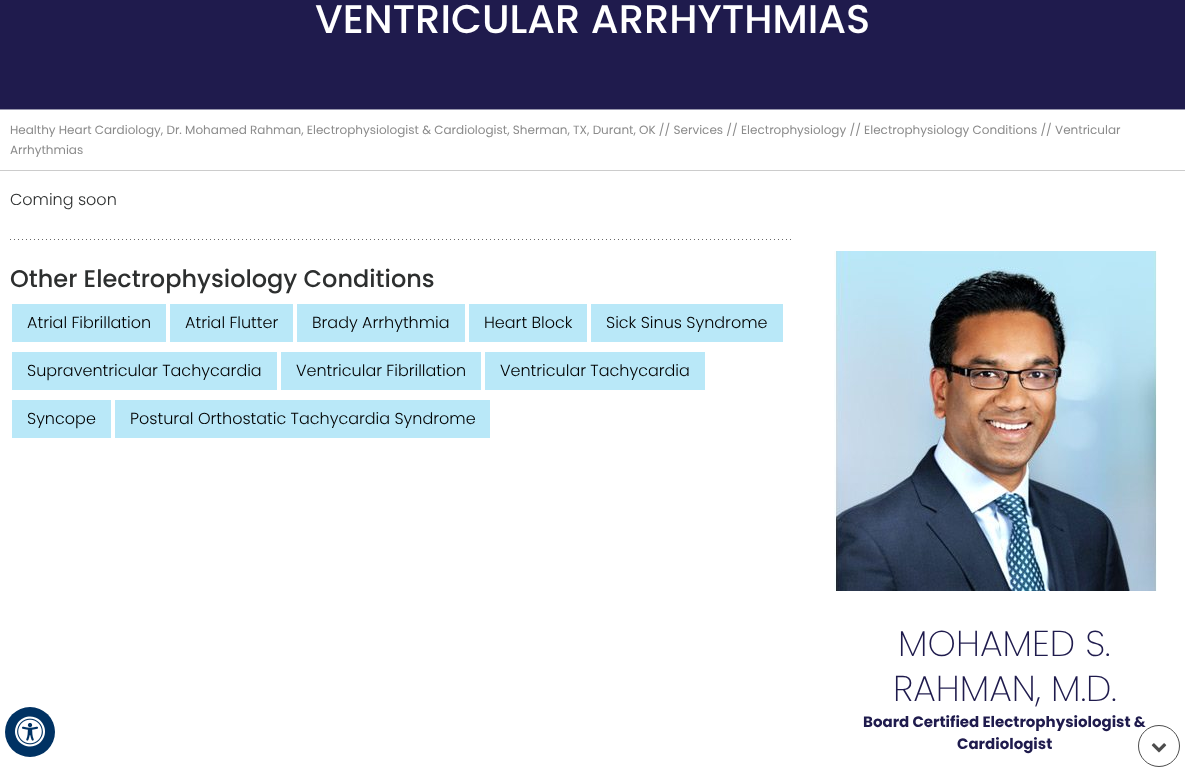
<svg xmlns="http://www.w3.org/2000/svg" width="1185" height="777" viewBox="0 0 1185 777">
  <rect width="100%" height="100%" fill="#fff"/>
  <path d="M0 0h1185v109H0z" fill="#1f1b4d"/>
  <path d="M0 109h1185v1H0z" fill="#9695ac"/>
  <path d="M0 170h1185v1H0z" fill="#ccc"/>
  <image x="10" y="239" width="781" height="1" href="img/1.png"/>
  <path d="M12 304h154v38H12z" fill="#b9e8f8"/>
  <path d="M170 304h123v38H170z" fill="#b9e8f8"/>
  <path d="M297 304h168v38H297z" fill="#b9e8f8"/>
  <path d="M469 304h118v38H469z" fill="#b9e8f8"/>
  <path d="M591 304h192v38H591z" fill="#b9e8f8"/>
  <path d="M12 352h265v38H12z" fill="#b9e8f8"/>
  <path d="M281 352h200v38H281z" fill="#b9e8f8"/>
  <path d="M485 352h220v38H485z" fill="#b9e8f8"/>
  <path d="M12 400h99v38H12z" fill="#b9e8f8"/>
  <path d="M115 400h375v38H115z" fill="#b9e8f8"/>
  <image x="834" y="251" width="323" height="340" href="img/2.png"/>
  <circle cx="30" cy="732" r="25" fill="#003263"/>
  <image x="15" y="716" width="30" height="31" href="img/3.png"/>
  <text x="315" y="33" font-family="Poppins" font-size="40" font-weight="500" fill="#fff">VENTRICULAR ARRHYTHMIAS</text>
  <g font-family="Poppins" font-size="12" fill="#8b8b8b">
    <text x="10" y="134">Healthy Heart Cardiology, Dr. Mohamed Rahman, Electrophysiologist &amp; Cardiologist, Sherman, TX, Durant, OK // Services // Electrophysiology // Electrophysiology Conditions // Ventricular</text>
    <text x="10" y="154">Arrhythmias</text>
  </g>
  <text x="10" y="205" font-family="Poppins" font-size="16" font-weight="300" fill="#2d2f2f">Coming soon</text>
  <text x="10" y="287" font-family="Poppins" font-size="24" font-weight="500" fill="#2d2f2f">Other Electrophysiology Conditions</text>
  <g font-family="Poppins" font-size="16" font-weight="300" fill="#000">
    <text x="27" y="328">Atrial Fibrillation</text>
    <text x="185" y="328">Atrial Flutter</text>
    <text x="312" y="328">Brady Arrhythmia</text>
    <text x="484" y="328">Heart Block</text>
    <text x="606" y="328">Sick Sinus Syndrome</text>
    <text x="27" y="376">Supraventricular Tachycardia</text>
    <text x="296" y="376">Ventricular Fibrillation</text>
    <text x="500" y="376">Ventricular Tachycardia</text>
    <text x="27" y="424">Syncope</text>
    <text x="130" y="424">Postural Orthostatic Tachycardia Syndrome</text>
  </g>
  <g font-family="Poppins" font-size="36" font-weight="200" fill="#1f1b4d">
    <text x="898" y="656">MOHAMED S.</text>
    <text x="893" y="701">RAHMAN, M.D.</text>
  </g>
  <g font-family="Poppins" font-size="15" font-weight="bold" fill="#1f1b4d">
    <text x="863" y="727">Board Certified Electrophysiologist &amp;</text>
    <text x="957" y="749">Cardiologist</text>
  </g>
  <circle cx="1159" cy="746" r="20.5" fill="none" stroke="#4d4d4d"/>
  <image x="1151" y="743" width="16" height="10" href="img/4.png"/>
</svg>
